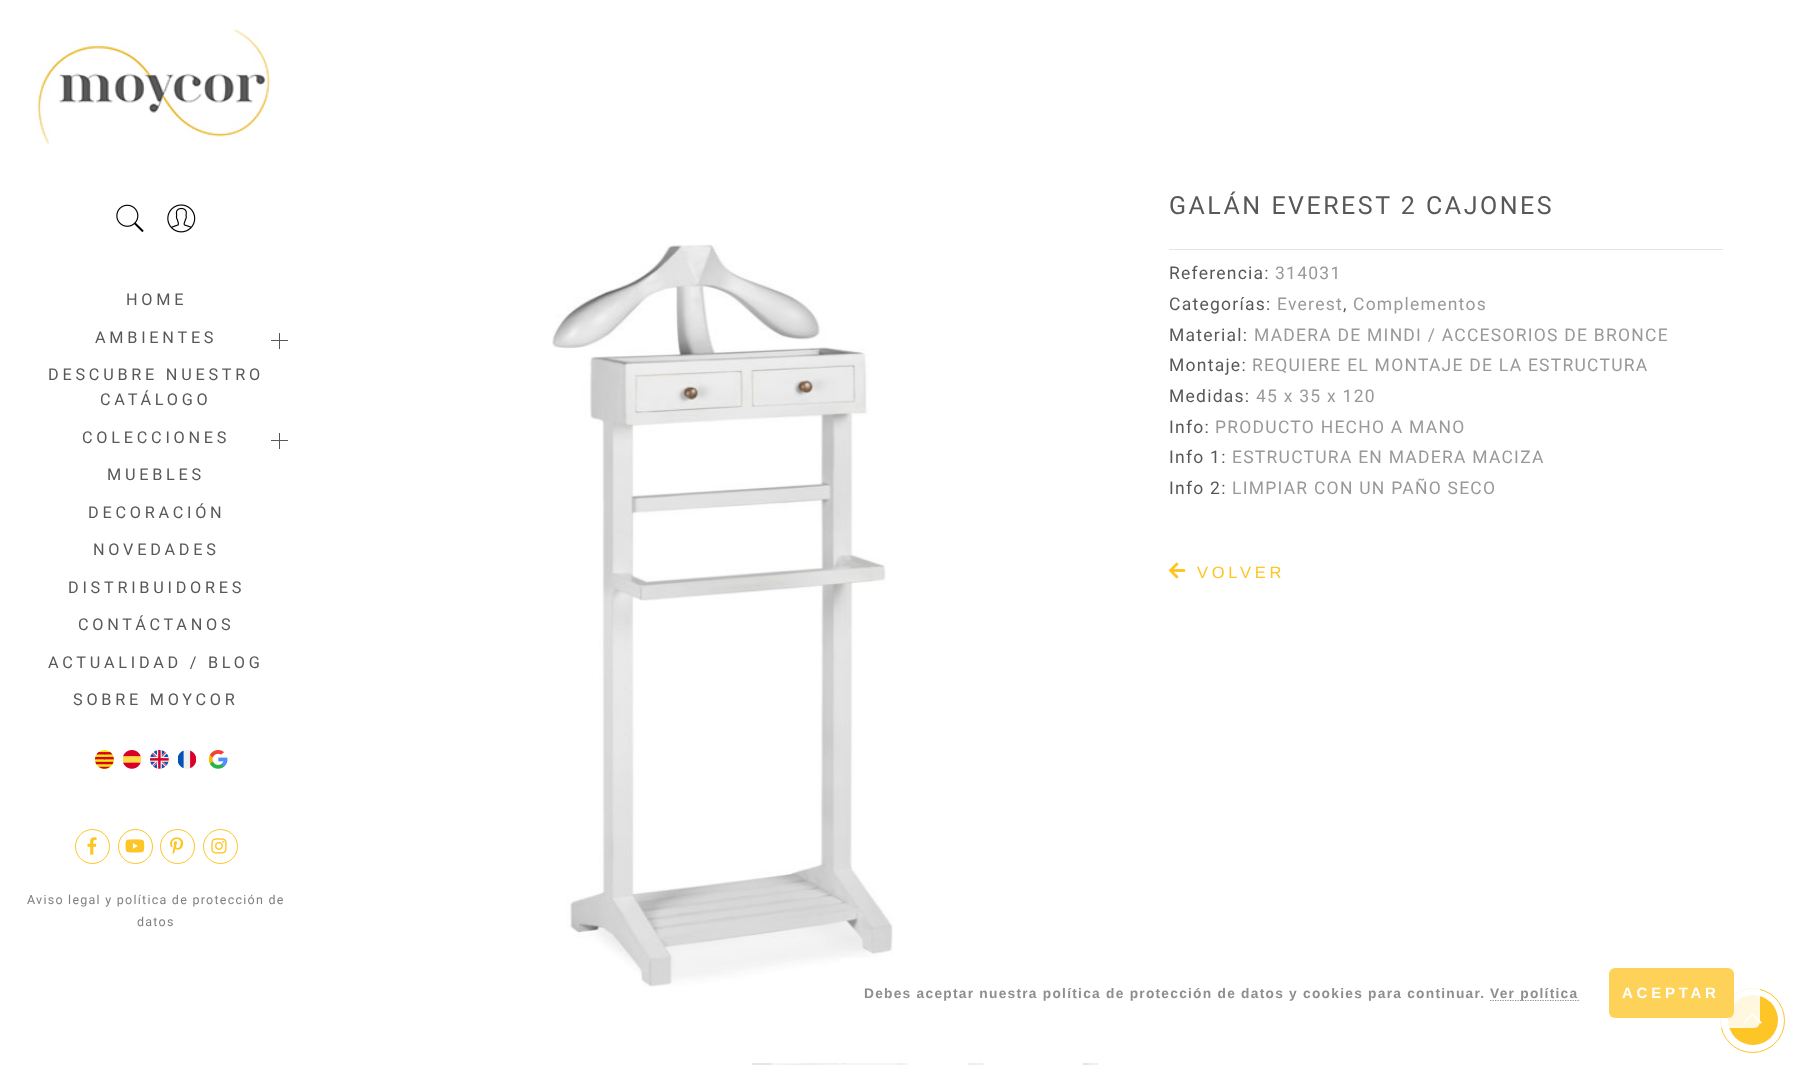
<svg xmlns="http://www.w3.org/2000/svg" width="1797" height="1065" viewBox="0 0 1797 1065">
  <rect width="100%" height="100%" fill="#fff"/>
  <image x="37" y="29" width="234" height="115" href="img/1.png"/>
  <image x="116" y="204" width="28" height="29" href="img/2.png"/>
  <image x="167" y="204" width="29" height="29" href="img/3.png"/>
  <path d="M279 333h1v16H279z" fill="#57585a"/>
  <path d="M271 340h17v1H271z" fill="#57585a"/>
  <path d="M279 433h1v16H279z" fill="#57585a"/>
  <path d="M271 440h17v1H271z" fill="#57585a"/>
  <image x="95" y="750" width="19" height="19" href="img/4.png"/>
  <image x="123" y="750" width="18" height="19" href="img/5.png"/>
  <image x="150" y="750" width="19" height="19" href="img/6.png"/>
  <image x="178" y="750" width="18" height="19" href="img/7.png"/>
  <image x="209" y="750" width="19" height="19" href="img/8.png"/>
  <circle cx="92.5" cy="846.5" r="17" fill="none" stroke="#fec526"/>
  <image x="87" y="837" width="10" height="18" href="img/9.png"/>
  <circle cx="135.5" cy="846.5" r="17" fill="none" stroke="#fec526"/>
  <image x="125" y="839" width="20" height="14" href="img/10.png"/>
  <circle cx="177.5" cy="846.5" r="17" fill="none" stroke="#fec526"/>
  <image x="170" y="837" width="14" height="18" href="img/11.png"/>
  <circle cx="220.5" cy="846.5" r="17" fill="none" stroke="#fec526"/>
  <image x="211" y="838" width="16" height="16" href="img/12.png"/>
  <image x="552" y="244" width="341" height="743" href="img/13.png"/>
  <image x="751" y="1063" width="157" height="2" href="img/14.png"/>
  <image x="967" y="1063" width="132" height="2" href="img/15.png"/>
  <path d="M1169 249h554v1H1169z" fill="#e5e5e5"/>
  <image x="1168" y="562" width="18" height="17" href="img/16.png"/>
  <circle cx="1752.5" cy="1020.5" r="32" fill="none" stroke="#fec526"/>
  <circle cx="1753" cy="1020" r="25" fill="#fec526"/>
  <image x="1743" y="1013" width="19" height="11" href="img/17.png"/>
  <rect x="838" y="958" width="922" height="70" rx="6" fill="#ffffffd9"/>
  <path d="M1490 1000.5H1579" fill="none" stroke="#8e8e8e" stroke-width="1.2" stroke-dasharray="1.25 1.25"/>
  <rect x="1609" y="968" width="125" height="50" rx="6" fill="#fed258"/>
  <g font-family="Roboto" font-size="16.25" letter-spacing="3.75" fill="#57585a">
    <text x="126" y="305">HOME</text>
    <text x="95" y="343">AMBIENTES</text>
    <text x="48" y="380">DESCUBRE NUESTRO</text>
    <text x="100" y="405">CATÁLOGO</text>
    <text x="82" y="443">COLECCIONES</text>
    <text x="107" y="480">MUEBLES</text>
    <text x="88" y="518">DECORACIÓN</text>
    <text x="93" y="555">NOVEDADES</text>
    <text x="68" y="593">DISTRIBUIDORES</text>
    <text x="78" y="630">CONTÁCTANOS</text>
    <text x="48" y="668">ACTUALIDAD / BLOG</text>
    <text x="73" y="705">SOBRE MOYCOR</text>
  </g>
  <g font-family="Roboto" font-size="12.5" letter-spacing="1.25" fill="#808080">
    <text x="27" y="904">Aviso legal y política de protección de</text>
    <text x="137" y="926">datos</text>
  </g>
  <text x="1169" y="214" font-family="Roboto" font-size="25" letter-spacing="2.5" fill="#57585a">GALÁN EVEREST 2 CAJONES</text>
  <text x="1169" y="279" font-family="Roboto" font-size="17.5" letter-spacing="1.25" fill="#57585a">Referencia:</text>
  <text x="1275" y="279" font-family="Roboto" font-size="17.5" letter-spacing="1.25" fill="#999">314031</text>
  <text x="1169" y="310" font-family="Roboto" font-size="17.5" letter-spacing="1.25" fill="#57585a">Categorías:</text>
  <text x="1277" y="310" font-family="Roboto" font-size="17.5" letter-spacing="1.25" fill="#999">Everest</text>
  <text x="1343" y="310" font-family="Roboto" font-size="17.5" letter-spacing="1.25" fill="#57585a">,</text>
  <text x="1353" y="310" font-family="Roboto" font-size="17.5" letter-spacing="1.25" fill="#999">Complementos</text>
  <text x="1169" y="341" font-family="Roboto" font-size="17.5" letter-spacing="1.25" fill="#57585a">Material:</text>
  <text x="1254" y="341" font-family="Roboto" font-size="17.5" letter-spacing="1.25" fill="#999">MADERA DE MINDI / ACCESORIOS DE BRONCE</text>
  <text x="1169" y="371" font-family="Roboto" font-size="17.5" letter-spacing="1.25" fill="#57585a">Montaje:</text>
  <text x="1252" y="371" font-family="Roboto" font-size="17.5" letter-spacing="1.25" fill="#999">REQUIERE EL MONTAJE DE LA ESTRUCTURA</text>
  <text x="1169" y="402" font-family="Roboto" font-size="17.5" letter-spacing="1.25" fill="#57585a">Medidas:</text>
  <text x="1256" y="402" font-family="Roboto" font-size="17.5" letter-spacing="1.25" fill="#999">45 x 35 x 120</text>
  <text x="1169" y="433" font-family="Roboto" font-size="17.5" letter-spacing="1.25" fill="#57585a">Info:</text>
  <text x="1215" y="433" font-family="Roboto" font-size="17.5" letter-spacing="1.25" fill="#999">PRODUCTO HECHO A MANO</text>
  <text x="1169" y="463" font-family="Roboto" font-size="17.5" letter-spacing="1.25" fill="#57585a">Info 1:</text>
  <text x="1232" y="463" font-family="Roboto" font-size="17.5" letter-spacing="1.25" fill="#999">ESTRUCTURA EN MADERA MACIZA</text>
  <text x="1169" y="494" font-family="Roboto" font-size="17.5" letter-spacing="1.25" fill="#57585a">Info 2:</text>
  <text x="1232" y="494" font-family="Roboto" font-size="17.5" letter-spacing="1.25" fill="#999">LIMPIAR CON UN PAÑO SECO</text>
  <text x="1197" y="578" font-family="Liberation Sans" font-size="16.5" letter-spacing="3.75" fill="#fec526">VOLVER</text>
  <g font-family="Liberation Sans" font-size="13.75" font-weight="bold" letter-spacing="1.25" fill="#8e8e8e">
    <text x="864" y="998">Debes aceptar nuestra política de protección de datos y cookies para continuar.</text>
    <text x="1490" y="998">Ver política</text>
  </g>
  <text x="1622" y="998" font-family="Liberation Sans" font-size="15" font-weight="bold" letter-spacing="3.75" fill="#fff">ACEPTAR</text>
</svg>
